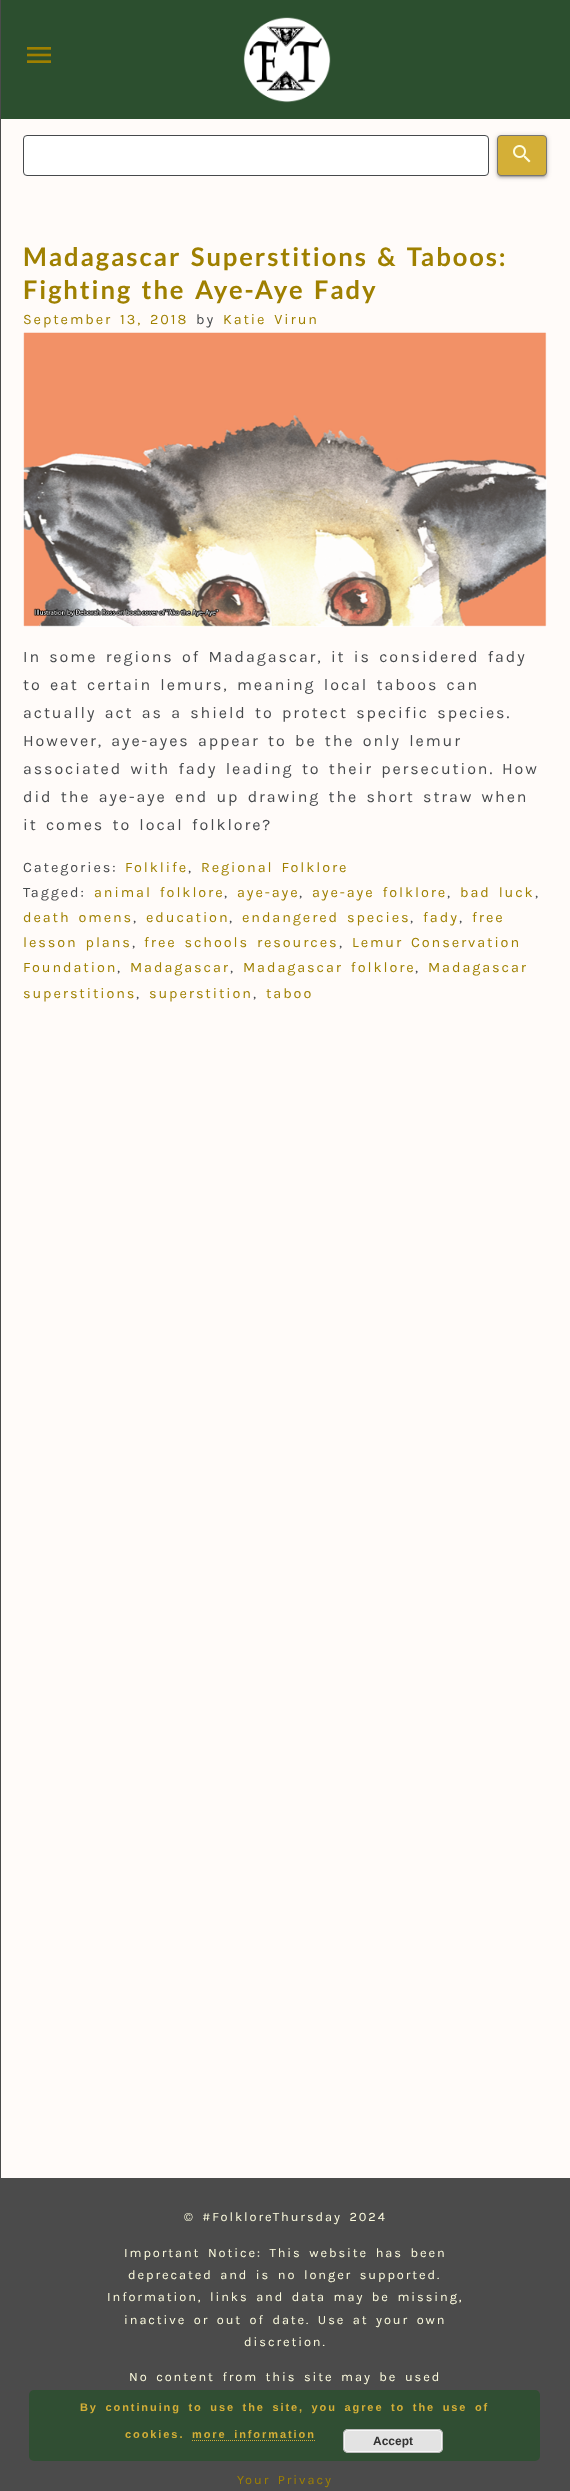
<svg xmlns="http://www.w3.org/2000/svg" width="570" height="2491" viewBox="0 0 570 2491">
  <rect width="100%" height="100%" fill="#fffbf9"/>
  <path d="M0 0h1v2491H0z" fill="#4b4b4b"/>
  <path d="M1 0h569v119H1z" fill="#2c4f2f"/>
  <image x="27" y="47" width="24" height="16" href="img/1.png"/>
  <image x="243" y="17" width="88" height="86" href="img/2.png"/>
  <rect x="23.5" y="135.5" width="465" height="40" rx="3.5" fill="#fff" stroke="#46494c"/>
  <rect x="499" y="140" width="46" height="37" rx="2" fill="#0000001f" filter="blur(0.5px)"/>
  <rect x="497" y="137" width="50" height="41" rx="4" fill="#00000024" filter="blur(1px)"/>
  <rect x="497" y="136" width="50" height="41" rx="4" fill="#00000033" filter="blur(2.5px)"/>
  <rect x="497.5" y="135.5" width="49" height="40" rx="3.5" fill="#d4af37" stroke="#777"/>
  <image x="513" y="145" width="18" height="18" href="img/3.png"/>
  <image x="23" y="332" width="524" height="295" href="img/4.png"/>
  <path d="M1 2178h569v313H1z" fill="#4b4b4b"/>
  <rect x="29" y="2390" width="511" height="71" rx="5" fill="#2c4f2fd9"/>
  <path d="M192 2440.5H316" fill="none" stroke="#d4af37" stroke-dasharray="1 1"/>
  <rect x="343" y="2429" width="100" height="24" rx="5" fill="#e3e3e3"/>
  <rect x="344.5" y="2430.5" width="97" height="21" rx="3.5" fill="none" stroke="#f6f6f6"/>
  <rect x="343.5" y="2429.5" width="99" height="23" rx="4.5" fill="none" stroke="#bbb"/>
  <g font-family="Lato" font-size="25.6" font-weight="bold" letter-spacing="1.92" fill="#9f8000">
    <text x="23" y="266" word-spacing="2.6">Madagascar Superstitions &amp; Taboos:</text>
    <text x="23" y="299" word-spacing="2.6">Fighting the Aye-Aye Fady</text>
  </g>
  <text x="23" y="324" word-spacing="2.6" font-family="Karla" font-size="14.4" letter-spacing="1.92" fill="#9f8000">September 13, 2018</text>
  <text x="196" y="324" font-family="Karla" font-size="14.4" letter-spacing="1.92" fill="#46494c">by</text>
  <text x="223" y="324" word-spacing="2.6" font-family="Karla" font-size="14.4" letter-spacing="1.92" fill="#9f8000">Katie Virun</text>
  <g font-family="Karla" font-size="16" letter-spacing="1.92" fill="#46494c">
    <text x="23" y="662" word-spacing="2.6">In some regions of Madagascar, it is considered fady</text>
    <text x="23" y="690" word-spacing="2.6">to eat certain lemurs, meaning local taboos can</text>
    <text x="23" y="718" word-spacing="2.6">actually act as a shield to protect specific species.</text>
    <text x="23" y="746" word-spacing="2.6">However, aye-ayes appear to be the only lemur</text>
    <text x="23" y="774" word-spacing="2.6">associated with fady leading to their persecution.</text>
    <text x="502" y="774">How</text>
    <text x="23" y="802" word-spacing="2.6">did the aye-aye end up drawing the short straw when</text>
    <text x="23" y="830" word-spacing="2.6">it comes to local folklore?</text>
  </g>
  <text x="23" y="872" font-family="Karla" font-size="14.4" letter-spacing="1.92" fill="#46494c">Categories:</text>
  <text x="125" y="872" font-family="Karla" font-size="14.4" letter-spacing="1.92" fill="#9f8000">Folklife</text>
  <text x="188" y="872" font-family="Karla" font-size="14.4" letter-spacing="1.92" fill="#46494c">,</text>
  <text x="201" y="872" word-spacing="2.6" font-family="Karla" font-size="14.4" letter-spacing="1.92" fill="#9f8000">Regional Folklore</text>
  <text x="23" y="897" font-family="Karla" font-size="14.4" letter-spacing="1.92" fill="#46494c">Tagged:</text>
  <text x="94" y="897" word-spacing="2.6" font-family="Karla" font-size="14.4" letter-spacing="1.92" fill="#9f8000">animal folklore</text>
  <text x="224" y="897" font-family="Karla" font-size="14.4" letter-spacing="1.92" fill="#46494c">,</text>
  <text x="237" y="897" font-family="Karla" font-size="14.4" letter-spacing="1.92" fill="#9f8000">aye-aye</text>
  <text x="299" y="897" font-family="Karla" font-size="14.4" letter-spacing="1.92" fill="#46494c">,</text>
  <text x="312" y="897" word-spacing="2.6" font-family="Karla" font-size="14.4" letter-spacing="1.92" fill="#9f8000">aye-aye folklore</text>
  <text x="447" y="897" font-family="Karla" font-size="14.4" letter-spacing="1.92" fill="#46494c">,</text>
  <text x="460" y="897" word-spacing="2.6" font-family="Karla" font-size="14.4" letter-spacing="1.92" fill="#9f8000">bad luck</text>
  <text x="535" y="897" font-family="Karla" font-size="14.4" letter-spacing="1.92" fill="#46494c">,</text>
  <text x="23" y="922" word-spacing="2.6" font-family="Karla" font-size="14.4" letter-spacing="1.92" fill="#9f8000">death omens</text>
  <text x="133" y="922" font-family="Karla" font-size="14.4" letter-spacing="1.92" fill="#46494c">,</text>
  <text x="146" y="922" font-family="Karla" font-size="14.4" letter-spacing="1.92" fill="#9f8000">education</text>
  <text x="229" y="922" font-family="Karla" font-size="14.4" letter-spacing="1.92" fill="#46494c">,</text>
  <text x="242" y="922" word-spacing="2.6" font-family="Karla" font-size="14.4" letter-spacing="1.92" fill="#9f8000">endangered species</text>
  <text x="410" y="922" font-family="Karla" font-size="14.4" letter-spacing="1.92" fill="#46494c">,</text>
  <text x="423" y="922" font-family="Karla" font-size="14.4" letter-spacing="1.92" fill="#9f8000">fady</text>
  <text x="459" y="922" font-family="Karla" font-size="14.4" letter-spacing="1.92" fill="#46494c">,</text>
  <g font-family="Karla" font-size="14.4" letter-spacing="1.92" fill="#9f8000">
    <text x="472" y="922">free</text>
    <text x="23" y="947" word-spacing="2.6">lesson plans</text>
  </g>
  <text x="132" y="947" font-family="Karla" font-size="14.4" letter-spacing="1.92" fill="#46494c">,</text>
  <text x="144" y="947" word-spacing="2.6" font-family="Karla" font-size="14.4" letter-spacing="1.92" fill="#9f8000">free schools resources</text>
  <text x="339" y="947" font-family="Karla" font-size="14.4" letter-spacing="1.92" fill="#46494c">,</text>
  <g font-family="Karla" font-size="14.4" letter-spacing="1.92" fill="#9f8000">
    <text x="352" y="947" word-spacing="2.6">Lemur Conservation</text>
    <text x="23" y="972">Foundation</text>
  </g>
  <text x="117" y="972" font-family="Karla" font-size="14.4" letter-spacing="1.92" fill="#46494c">,</text>
  <text x="130" y="972" font-family="Karla" font-size="14.4" letter-spacing="1.92" fill="#9f8000">Madagascar</text>
  <text x="230" y="972" font-family="Karla" font-size="14.4" letter-spacing="1.92" fill="#46494c">,</text>
  <text x="243" y="972" word-spacing="2.6" font-family="Karla" font-size="14.4" letter-spacing="1.92" fill="#9f8000">Madagascar folklore</text>
  <text x="415" y="972" font-family="Karla" font-size="14.4" letter-spacing="1.92" fill="#46494c">,</text>
  <g font-family="Karla" font-size="14.4" letter-spacing="1.92" fill="#9f8000">
    <text x="428" y="972">Madagascar</text>
    <text x="23" y="998">superstitions</text>
  </g>
  <text x="136" y="998" font-family="Karla" font-size="14.4" letter-spacing="1.92" fill="#46494c">,</text>
  <text x="149" y="998" font-family="Karla" font-size="14.4" letter-spacing="1.92" fill="#9f8000">superstition</text>
  <text x="253" y="998" font-family="Karla" font-size="14.4" letter-spacing="1.92" fill="#46494c">,</text>
  <text x="266" y="998" font-family="Karla" font-size="14.4" letter-spacing="1.92" fill="#9f8000">taboo</text>
  <g font-family="Karla" font-size="12.8" letter-spacing="1.92" fill="#fefddf">
    <text x="184" y="2221" word-spacing="2.6">© #FolkloreThursday 2024</text>
    <text x="124" y="2257" word-spacing="2.6">Important Notice: This website has been</text>
    <text x="128" y="2279" word-spacing="2.6">deprecated and is no longer supported.</text>
    <text x="107" y="2301" word-spacing="2.6">Information, links and data may be missing,</text>
    <text x="124" y="2324" word-spacing="2.6">inactive or out of date. Use at your own</text>
    <text x="244" y="2346">discretion.</text>
    <text x="129" y="2381" word-spacing="2.6">No content from this site may be used</text>
  </g>
  <text x="237" y="2484" word-spacing="2.6" font-family="Karla" font-size="12.8" letter-spacing="1.92" fill="#9f8000">Your Privacy</text>
  <g font-family="Liberation Sans" font-size="11" font-weight="bold" letter-spacing="1.92" fill="#d4af37">
    <text x="80" y="2411" word-spacing="2.6">By continuing to use the site, you agree to the use of</text>
    <text x="125" y="2438">cookies.</text>
    <text x="192" y="2438" word-spacing="2.6">more information</text>
  </g>
  <text x="373" y="2445" font-family="Liberation Sans" font-size="12" font-weight="bold" fill="#333">Accept</text>
</svg>
